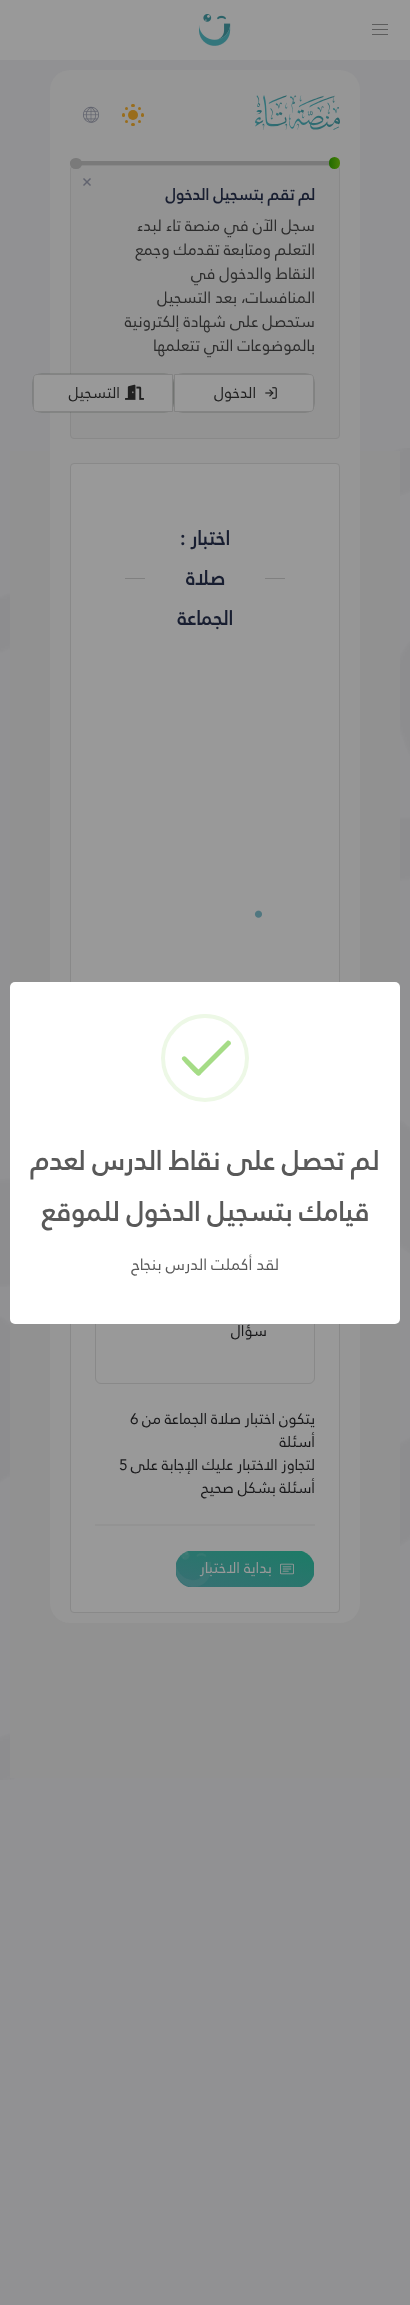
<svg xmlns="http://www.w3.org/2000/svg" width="410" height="2305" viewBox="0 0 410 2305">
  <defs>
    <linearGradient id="g1" gradientUnits="userSpaceOnUse" x1="340" y1="163" x2="329" y2="163"><stop offset="0" stop-color="#4a8109"/><stop offset="1" stop-color="#216a00"/></linearGradient>
    <clipPath id="clip1"><rect x="175" y="1550" width="140" height="38" rx="19"/></clipPath>
    <linearGradient id="g2" gradientUnits="userSpaceOnUse" x1="234" y1="1605" x2="256" y2="1533"><stop offset="0" stop-color="#396f74"/><stop offset="1" stop-color="#1c7b66"/></linearGradient>
  </defs>
  <rect width="100%" height="100%" fill="#919193"/>
  <image x="0" y="448" width="410" height="1332" href="img/1.png"/>
  <path d="M0 0h410v60H0z" fill="#999"/>
  <path d="M372 24h16v1H372z" fill="#5c5c5c"/>
  <path d="M372 29h16v1H372z" fill="#5c5c5c"/>
  <path d="M372 34h16v1H372z" fill="#5c5c5c"/>
  <image x="199" y="14" width="32" height="32" href="img/2.png"/>
  <path d="M10 451h390v1327H10z" fill="#919191"/>
  <rect x="50" y="70" width="310" height="1553" rx="20" fill="#969696"/>
  <image x="255" y="95" width="85" height="35" href="img/3.png"/>
  <circle cx="139.5" cy="108.5" r="1.5" fill="#996d1c"/>
  <circle cx="126.5" cy="108.5" r="1.5" fill="#996d1c"/>
  <circle cx="139.5" cy="121.5" r="1.5" fill="#996d1c"/>
  <circle cx="126.5" cy="121.5" r="1.5" fill="#996d1c"/>
  <rect x="141" y="113" width="3" height="4" rx="1.5" fill="#996d1c"/>
  <rect x="122" y="113" width="3" height="4" rx="1.5" fill="#996d1c"/>
  <rect x="131" y="123" width="4" height="3" rx="1.5" fill="#996d1c"/>
  <rect x="131" y="104" width="4" height="3" rx="1.5" fill="#996d1c"/>
  <circle cx="133" cy="115" r="5" fill="#996d1c"/>
  <image x="83" y="106" width="16" height="17" href="img/4.png"/>
  <rect x="70.5" y="165.5" width="269" height="273" rx="3.5" fill="#939393" stroke="#898989"/>
  <path d="M83 185L90 178L91 179L84 186Z" fill="#61636f"/>
  <path d="M83 179L84 178L91 185L90 186Z" fill="#61636f"/>
  <rect x="173.5" y="373.5" width="141" height="39" rx="9.5" fill="none" stroke="#818281"/>
  <path d="M174.5 374.5H310C312 374.5 313.5 376 313.5 378V408C313.5 410 312 411.5 310 411.5H174.5Z" fill="#999" stroke="#838383"/>
  <image x="265" y="387" width="12" height="12" href="img/5.png"/>
  <rect x="32.5" y="373.5" width="141" height="39" rx="9.5" fill="none" stroke="#0a140a21"/>
  <path d="M37 374.5H172.5V411.5H37C35 411.5 33.5 410 33.5 408V378C33.5 376 35 374.5 37 374.5Z" fill="#999" stroke="#838383"/>
  <image x="125" y="384" width="19" height="16" href="img/6.png"/>
  <rect x="70" y="161" width="270" height="4" rx="2" fill="#7a7a7a"/>
  <rect x="329" y="157" width="11" height="12" rx="5.5" fill="url(#g1)"/>
  <rect x="70" y="158" width="12" height="11" rx="5.5" fill="#7a7a7a"/>
  <rect x="70.5" y="463.5" width="269" height="1149" rx="3.5" fill="#999" stroke="#898989"/>
  <path d="M265 578h20v1H265z" fill="#808080"/>
  <path d="M125 578h20v1H125z" fill="#808080"/>
  <image x="254" y="910" width="8" height="8" href="img/7.png"/>
  <rect x="95.5" y="998.5" width="219" height="385" rx="5.5" fill="none" stroke="#898989"/>
  <path d="M95 1524h220v2H95z" fill="#939393"/>
  <g clip-path="url(#clip1)">
    <path d="M176 1551h138v36H176z" fill="url(#g2)"/>
  </g>
  <image x="176" y="1551" width="35" height="36" href="img/8.png"/>
  <image x="280" y="1563" width="14" height="12" href="img/9.png"/>
  <rect x="10" y="982" width="390" height="342" rx="5" fill="#fff"/>
  <path d="M196.5 1071.5L227.5 1040.5C229.5 1040 232 1042.5 230.5 1044.5L200 1075L198.5 1075.5C196.5 1075 195 1073 196.5 1071.5Z" fill="#a5dc86"/>
  <path d="M186 1057L198 1069C199.5 1070.5 202.5 1072.5 200.5 1074.5C200 1075 199.5 1076 198 1075.5C196.5 1075.5 186.5 1064.5 185 1063L182 1059.5C181 1057.5 184 1055 186 1057Z" fill="#a5dc86"/>
  <circle cx="205" cy="1058" r="42" fill="none" stroke="#edf8e6" stroke-width="4"/>
  <text x="315" y="200" font-family="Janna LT" font-size="16" font-weight="bold" direction="rtl" fill="#181e31">لم تقم بتسجيل الدخول</text>
  <g font-family="Janna LT" font-size="16" direction="rtl" fill="#2c2c2c">
    <text x="315" y="231">سجل الآن في منصة تاء لبدء</text>
    <text x="315" y="255">التعلم ومتابعة تقدمك وجمع</text>
    <text x="315" y="279">النقاط والدخول في</text>
    <text x="315" y="303">المنافسات، بعد التسجيل</text>
    <text x="315" y="327">ستحصل على شهادة إلكترونية</text>
    <text x="315" y="351">بالموضوعات التي تتعلمها</text>
  </g>
  <g font-family="Janna LT" font-size="15.25" direction="rtl" fill="#202020">
    <text x="256" y="398">الدخول</text>
    <text x="120" y="398">التسجيل</text>
  </g>
  <g font-family="Janna LT" font-size="20" font-weight="bold" direction="rtl" fill="#181e31">
    <text x="230" y="545">اختبار :</text>
    <text x="225" y="585">صلاة</text>
    <text x="233" y="625">الجماعة</text>
  </g>
  <g font-family="Janna LT" font-size="15.25" direction="rtl" fill="#18181a">
    <text x="267" y="1336">سؤال</text>
    <text x="315" y="1424">يتكون اختبار صلاة الجماعة من</text>
  </g>
  <text x="130" y="1424" font-family="Janna LT" font-size="15.25" fill="#18181a">6</text>
  <g font-family="Janna LT" font-size="15.25" direction="rtl" fill="#18181a">
    <text x="315" y="1447">أسئلة</text>
    <text x="315" y="1470">لتجاوز الاختبار عليك الإجابة على</text>
  </g>
  <text x="119" y="1470" font-family="Janna LT" font-size="15.25" fill="#18181a">5</text>
  <g font-family="Janna LT" font-size="15.25" direction="rtl" fill="#18181a">
    <text x="315" y="1493">أسئلة</text>
    <text x="276" y="1493">بشكل صحيح</text>
  </g>
  <text x="272" y="1573" font-family="Janna LT" font-size="15.25" direction="rtl" fill="#999">بداية الاختبار</text>
  <g font-family="Janna LT" font-size="27" font-weight="bold" direction="rtl" fill="#595959">
    <text x="379" y="1170">لم تحصل على نقاط الدرس لعدم</text>
    <text x="369" y="1221">قيامك بتسجيل الدخول للموقع</text>
  </g>
  <text x="279" y="1270" font-family="Janna LT" font-size="16" direction="rtl" fill="#595959">لقد أكملت الدرس بنجاح</text>
</svg>
